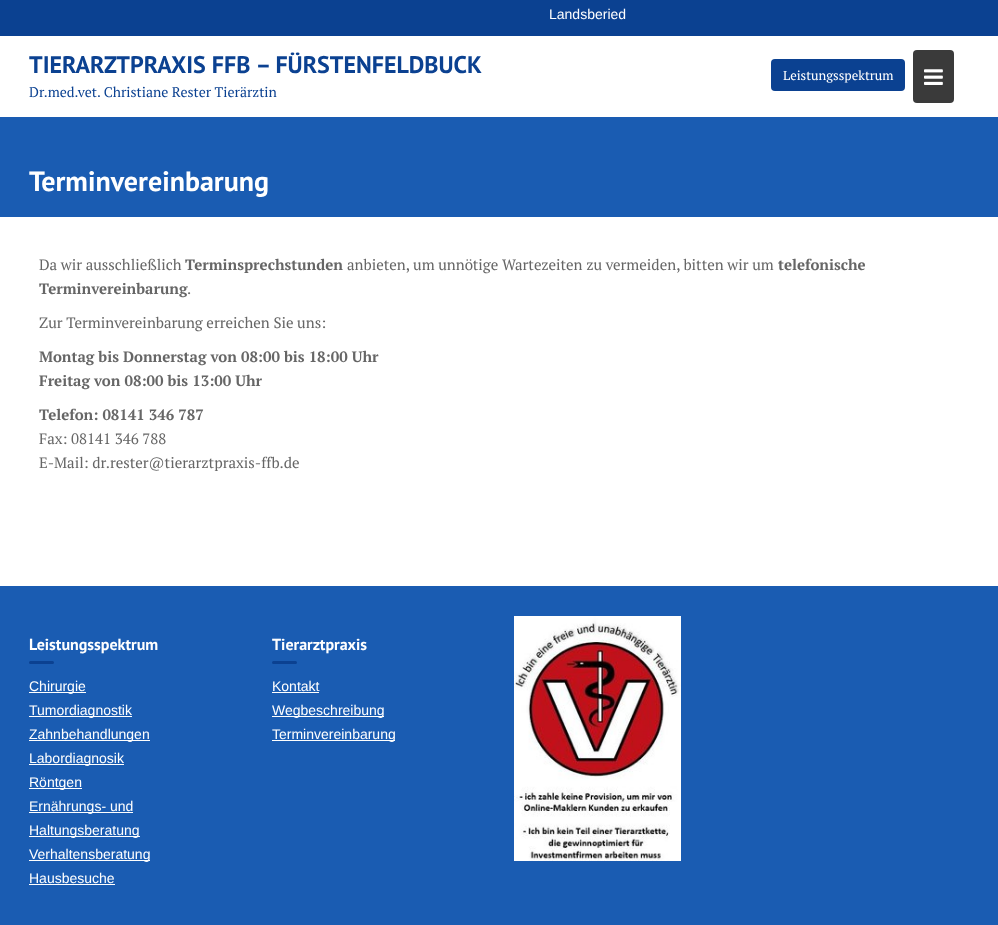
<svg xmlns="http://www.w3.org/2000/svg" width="998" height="925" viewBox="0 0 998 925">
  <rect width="100%" height="100%" fill="#fff"/>
  <path d="M0 0h998v36H0z" fill="#0b4191"/>
  <rect x="913" y="50" width="41" height="53" rx="4" fill="#3a3a3a"/>
  <image x="924" y="69" width="19" height="16" href="img/1.png"/>
  <rect x="771" y="59" width="134" height="32" rx="4" fill="#0b4191"/>
  <path d="M0 117h998v100H0z" fill="#1a5cb2"/>
  <path d="M0 586h998v339H0z" fill="#1a5cb2"/>
  <rect x="29" y="661" width="25" height="3" rx="1.5" fill="#0b4191"/>
  <path d="M29 692h57v1H29z" fill="#fff"/>
  <path d="M29 716h103v1H29z" fill="#fff"/>
  <path d="M29 740h121v1H29z" fill="#fff"/>
  <path d="M29 764h95v1H29z" fill="#fff"/>
  <path d="M29 788h53v1H29z" fill="#fff"/>
  <path d="M29 812h104v1H29z" fill="#fff"/>
  <path d="M29 836h111v1H29z" fill="#fff"/>
  <path d="M29 860h121v1H29z" fill="#fff"/>
  <path d="M29 884h86v1H29z" fill="#fff"/>
  <rect x="272" y="661" width="25" height="3" rx="1.5" fill="#0b4191"/>
  <path d="M272 692h47v1H272z" fill="#fff"/>
  <path d="M272 716h112v1H272z" fill="#fff"/>
  <path d="M272 740h123v1H272z" fill="#fff"/>
  <image x="514" y="616" width="167" height="245" href="img/2.png"/>
  <text x="549" y="19" font-family="Liberation Sans" font-size="14" fill="#fff">Landsberied</text>
  <text x="29" y="73" font-family="PT Sans" font-size="24" font-weight="bold" fill="#0b4191">TIERARZTPRAXIS FFB – FÜRSTENFELDBUCK</text>
  <text x="29" y="97" font-family="PT Serif" font-size="14" fill="#0b4191">Dr.med.vet. Christiane Rester Tierärztin</text>
  <text x="783" y="80" font-family="PT Serif" font-size="13" fill="#fff">Leistungsspektrum</text>
  <text x="29" y="191" font-family="PT Sans" font-size="28" font-weight="bold" fill="#fff">Terminvereinbarung</text>
  <text x="39" y="270" font-family="PT Serif" font-size="15" fill="#666">Da wir ausschließlich</text>
  <text x="185" y="270" font-family="PT Serif" font-size="15" font-weight="bold" fill="#666">Terminsprechstunden</text>
  <text x="347" y="270" font-family="PT Serif" font-size="15" fill="#666">anbieten, um unnötige Wartezeiten zu vermeiden, bitten wir um</text>
  <g font-family="PT Serif" font-size="15" font-weight="bold" fill="#666">
    <text x="778" y="270">telefonische</text>
    <text x="39" y="294">Terminvereinbarung</text>
  </g>
  <g font-family="PT Serif" font-size="15" fill="#666">
    <text x="187" y="294">.</text>
    <text x="39" y="328">Zur Terminvereinbarung erreichen Sie uns:</text>
  </g>
  <g font-family="PT Serif" font-size="15" font-weight="bold" fill="#666">
    <text x="39" y="362">Montag bis Donnerstag von 08:00 bis 18:00 Uhr</text>
    <text x="39" y="386">Freitag von 08:00 bis 13:00 Uhr</text>
    <text x="39" y="420">Telefon: 08141 346 787</text>
  </g>
  <g font-family="PT Serif" font-size="15" fill="#666">
    <text x="39" y="444">Fax: 08141 346 788</text>
    <text x="39" y="468">E-Mail: dr.rester@tierarztpraxis-ffb.de</text>
  </g>
  <text x="29" y="650" font-family="PT Sans" font-size="16" font-weight="bold" fill="#fff">Leistungsspektrum</text>
  <g font-family="Liberation Sans" font-size="14" fill="#fff">
    <text x="29" y="691">Chirurgie</text>
    <text x="29" y="715">Tumordiagnostik</text>
    <text x="29" y="739">Zahnbehandlungen</text>
    <text x="29" y="763">Labordiagnosik</text>
    <text x="29" y="787">Röntgen</text>
    <text x="29" y="811">Ernährungs- und</text>
    <text x="29" y="835">Haltungsberatung</text>
    <text x="29" y="859">Verhaltensberatung</text>
    <text x="29" y="883">Hausbesuche</text>
  </g>
  <text x="272" y="650" font-family="PT Sans" font-size="16" font-weight="bold" fill="#fff">Tierarztpraxis</text>
  <g font-family="Liberation Sans" font-size="14" fill="#fff">
    <text x="272" y="691">Kontakt</text>
    <text x="272" y="715">Wegbeschreibung</text>
    <text x="272" y="739">Terminvereinbarung</text>
  </g>
</svg>
